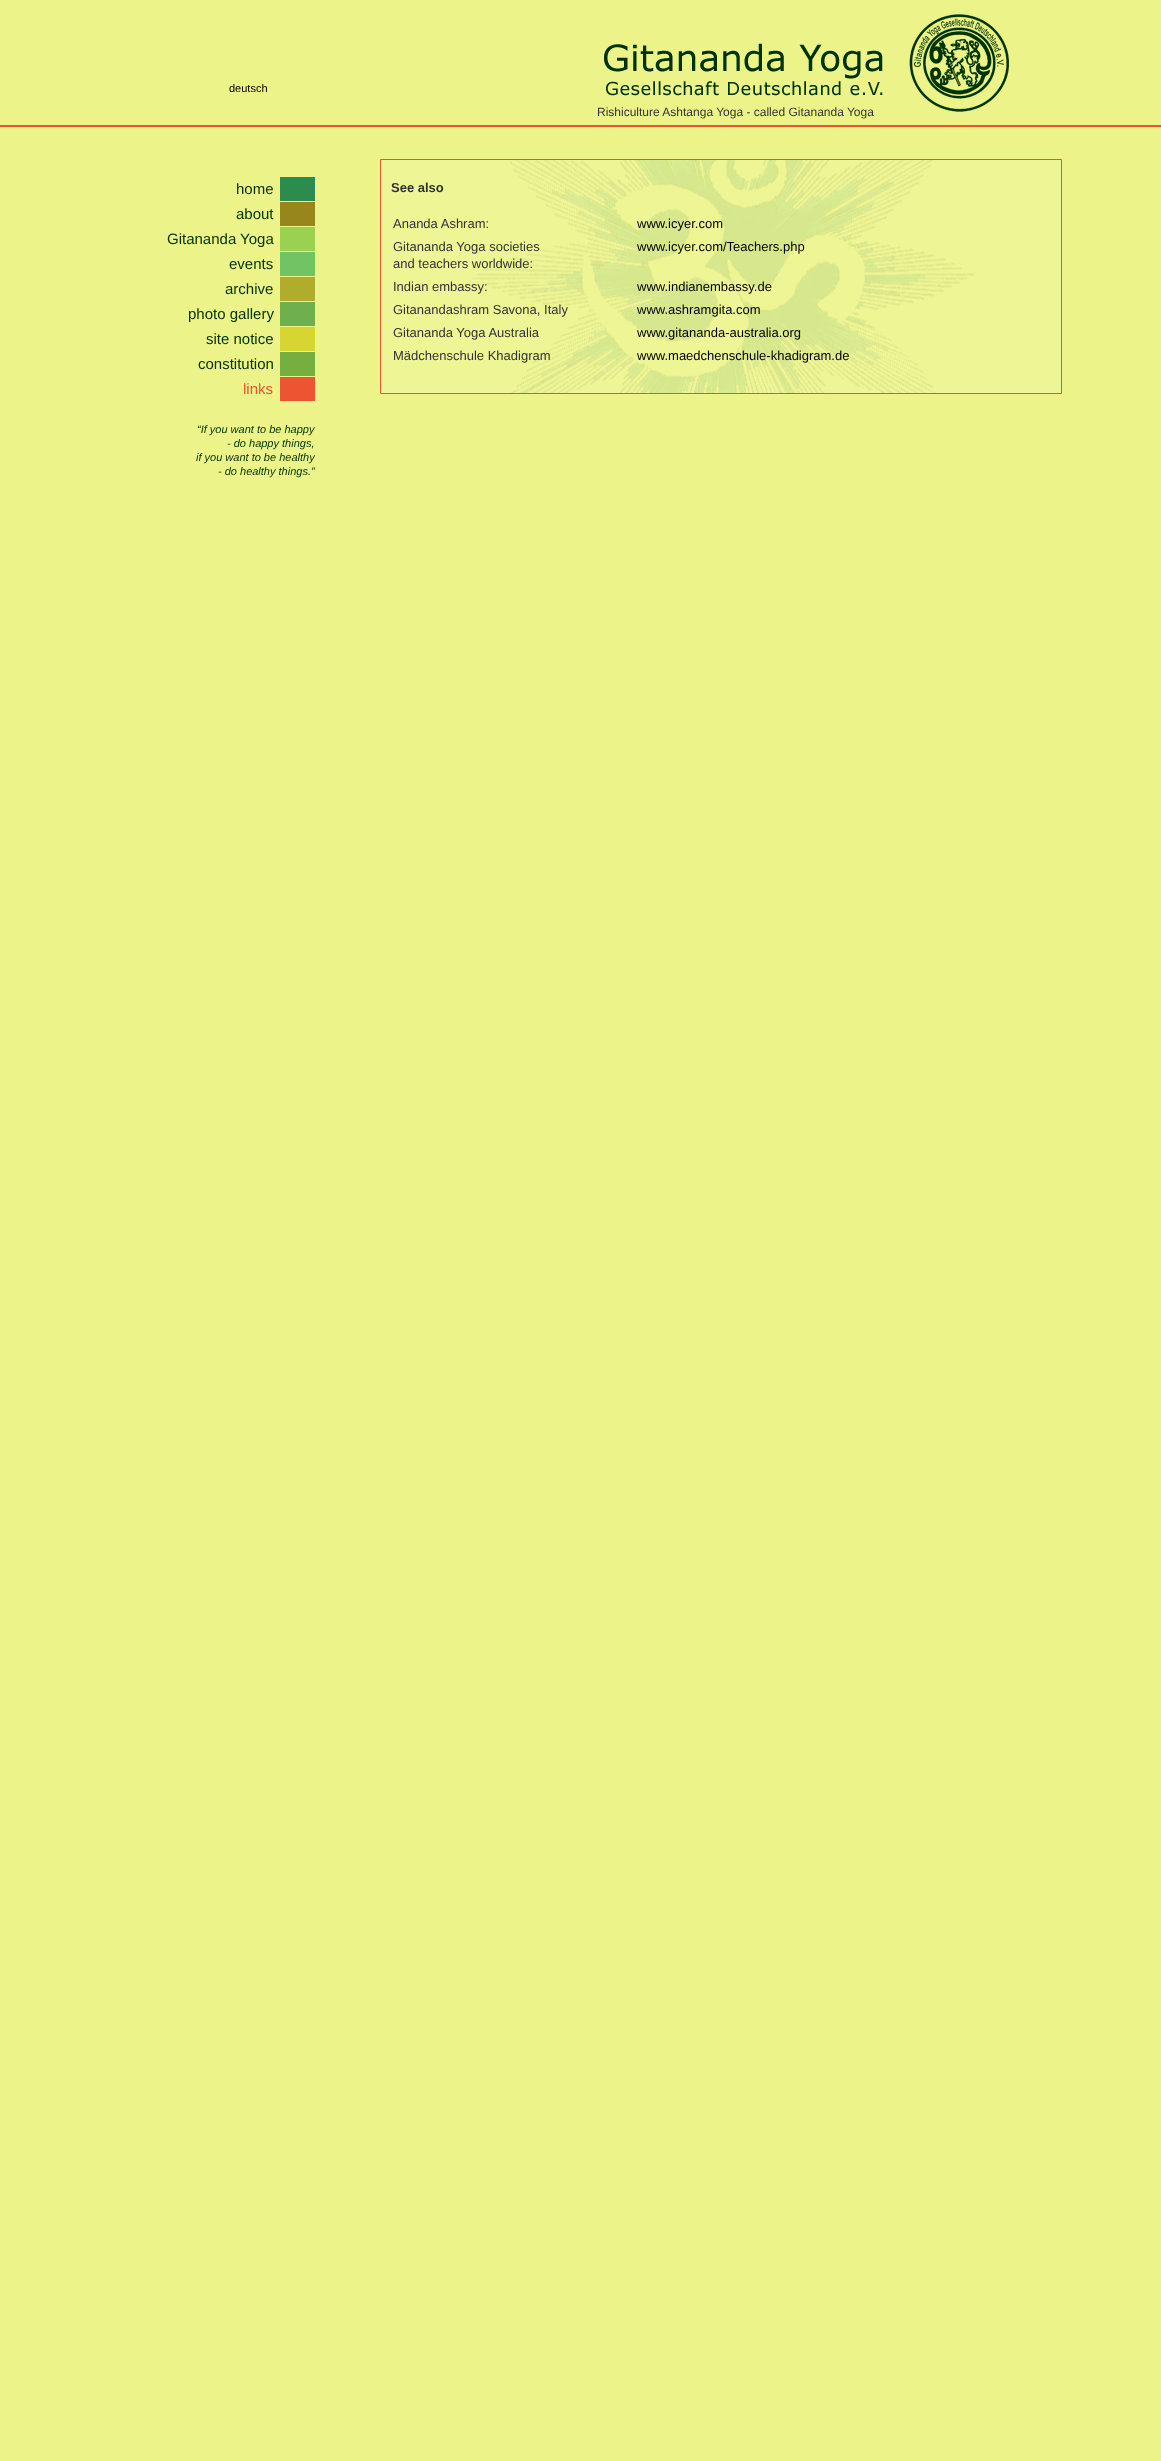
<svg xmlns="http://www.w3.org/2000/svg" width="1161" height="2461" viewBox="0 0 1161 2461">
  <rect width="100%" height="100%" fill="#ecf389"/>
  <path d="M0 125h1161v2H0z" fill="#ed5532"/>
  <image x="604" y="43" width="279" height="53" href="img/1.png"/>
  <image x="909" y="14" width="100" height="98" href="img/2.png"/>
  <path d="M280 177h35v24H280z" fill="#2d8b4e"/>
  <path d="M280 202h35v24H280z" fill="#96861b"/>
  <path d="M280 227h35v24H280z" fill="#9ad150"/>
  <path d="M280 252h35v24H280z" fill="#72c363"/>
  <path d="M280 277h35v24H280z" fill="#b1ad2c"/>
  <path d="M280 302h35v24H280z" fill="#70af4e"/>
  <path d="M280 327h35v24H280z" fill="#d6d531"/>
  <path d="M280 352h35v24H280z" fill="#77ae40"/>
  <path d="M280 377h35v24H280z" fill="#ed5532"/>
  <path d="M381 160h680v233H381z" fill="#eef595"/>
  <image x="472" y="160" width="503" height="233" href="img/3.png"/>
  <path d="M380.5 159.5h681v234H380.5z" fill="none" stroke="#ed5532"/>
  <text x="229" y="92" font-family="Liberation Sans" font-size="11" fill="#000">deutsch</text>
  <text x="597" y="116" font-family="Liberation Sans" font-size="12" fill="#333">Rishiculture Ashtanga Yoga - called Gitananda Yoga</text>
  <g font-family="Liberation Sans" font-size="15" fill="#030">
    <text x="236" y="194">home</text>
    <text x="236" y="219">about</text>
    <text x="167" y="244">Gitananda Yoga</text>
    <text x="229" y="269">events</text>
    <text x="225" y="294">archive</text>
    <text x="188" y="319">photo gallery</text>
    <text x="206" y="344">site notice</text>
    <text x="198" y="369">constitution</text>
  </g>
  <text x="243" y="394" font-family="Liberation Sans" font-size="15" fill="#ed5532">links</text>
  <g font-family="Liberation Sans" font-size="11" font-style="italic" fill="#030">
    <text x="197" y="433">“If you want to be happy</text>
    <text x="227" y="447">- do happy things,</text>
    <text x="196" y="461">if you want to be healthy</text>
    <text x="218" y="475">- do healthy things.”</text>
  </g>
  <text x="391" y="192" font-family="Liberation Sans" font-size="13" font-weight="bold" fill="#333">See also</text>
  <text x="393" y="228" font-family="Liberation Sans" font-size="13" fill="#333">Ananda Ashram:</text>
  <text x="637" y="228" font-family="Liberation Sans" font-size="13" fill="#000">www.icyer.com</text>
  <g font-family="Liberation Sans" font-size="13" fill="#333">
    <text x="393" y="251">Gitananda Yoga societies</text>
    <text x="393" y="268">and teachers worldwide:</text>
  </g>
  <text x="637" y="251" font-family="Liberation Sans" font-size="13" fill="#000">www.icyer.com/Teachers.php</text>
  <text x="393" y="291" font-family="Liberation Sans" font-size="13" fill="#333">Indian embassy:</text>
  <text x="637" y="291" font-family="Liberation Sans" font-size="13" fill="#000">www.indianembassy.de</text>
  <text x="393" y="314" font-family="Liberation Sans" font-size="13" fill="#333">Gitanandashram Savona, Italy</text>
  <text x="637" y="314" font-family="Liberation Sans" font-size="13" fill="#000">www.ashramgita.com</text>
  <text x="393" y="337" font-family="Liberation Sans" font-size="13" fill="#333">Gitananda Yoga Australia</text>
  <text x="637" y="337" font-family="Liberation Sans" font-size="13" fill="#000">www.gitananda-australia.org</text>
  <text x="393" y="360" font-family="Liberation Sans" font-size="13" fill="#333">Mädchenschule Khadigram</text>
  <text x="637" y="360" font-family="Liberation Sans" font-size="13" fill="#000">www.maedchenschule-khadigram.de</text>
</svg>
